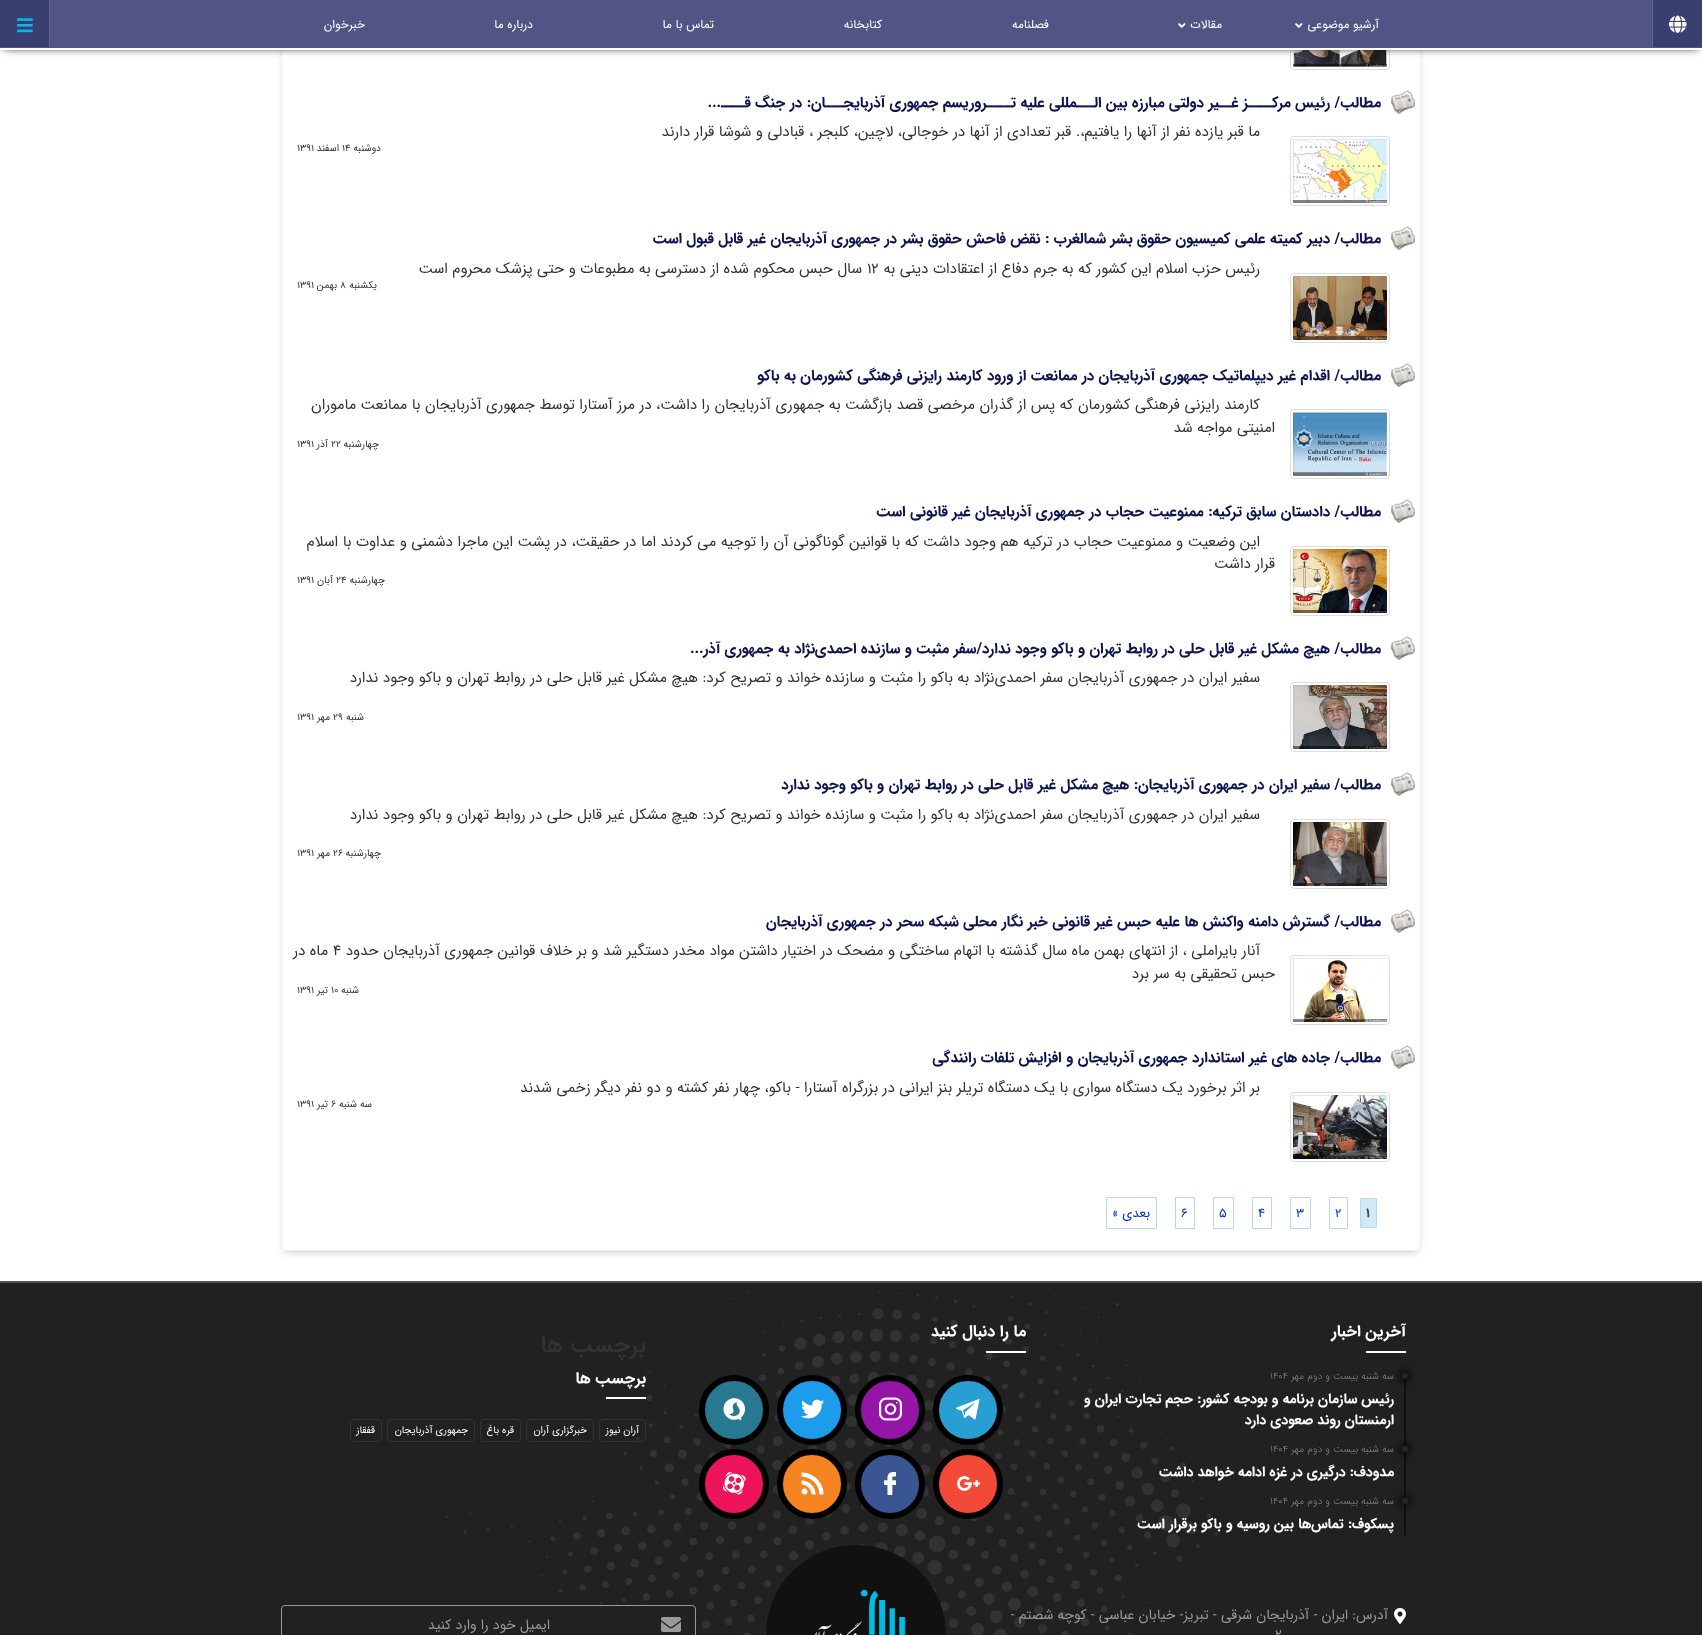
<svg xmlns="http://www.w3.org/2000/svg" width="1702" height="1635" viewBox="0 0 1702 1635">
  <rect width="100%" height="100%" fill="#fff"/>
  <rect x="285" y="-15" width="1132" height="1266" rx="1" fill="#bbb" filter="blur(4.5px)"/>
  <rect x="281.5" y="-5.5" width="1139" height="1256" rx="4.5" fill="#fff" stroke="#eee"/>
  <rect x="1290.5" y="0.5" width="99" height="69" rx="3.5" fill="none" stroke="#ddd"/>
  <image x="1293" y="50" width="94" height="17" href="img/4.png"/>
  <path d="M4 6h1694v42H4z" fill="#000" filter="blur(4px)"/>
  <path d="M0 0h1702v48H0z" fill="#505586"/>
  <path d="M0 48h1702v2H0z" fill="#fff"/>
  <path d="M1653 0h49v47H1653z" fill="#3a3f72"/>
  <path d="M1652 0h1v47H1652z" fill="#61658e"/>
  <image x="1669" y="15" width="18" height="18" href="img/1.png"/>
  <image x="1295" y="23" width="8" height="5" href="img/2.png"/>
  <image x="1178" y="23" width="8" height="5" href="img/2.png"/>
  <path d="M0 0h49v47H0z" fill="#3a3f72"/>
  <path d="M49 0h1v47H49z" fill="#61658e"/>
  <image x="17" y="18" width="16" height="15" href="img/3.png"/>
  <image x="1391" y="90" width="24" height="24" href="img/5.png"/>
  <rect x="1290.5" y="136.5" width="99" height="69" rx="3.5" fill="none" stroke="#ddd"/>
  <image x="1293" y="139" width="94" height="64" href="img/6.png"/>
  <image x="1391" y="226" width="24" height="24" href="img/5.png"/>
  <rect x="1290.5" y="273.5" width="99" height="69" rx="3.5" fill="none" stroke="#ddd"/>
  <image x="1293" y="276" width="94" height="64" href="img/7.png"/>
  <image x="1391" y="363" width="24" height="24" href="img/5.png"/>
  <rect x="1290.5" y="409.5" width="99" height="69" rx="3.5" fill="none" stroke="#ddd"/>
  <image x="1293" y="412" width="94" height="64" href="img/8.png"/>
  <image x="1391" y="499" width="24" height="24" href="img/5.png"/>
  <rect x="1290.5" y="546.5" width="99" height="69" rx="3.5" fill="none" stroke="#ddd"/>
  <image x="1293" y="549" width="94" height="64" href="img/9.png"/>
  <image x="1391" y="636" width="24" height="24" href="img/5.png"/>
  <rect x="1290.5" y="682.5" width="99" height="69" rx="3.5" fill="none" stroke="#ddd"/>
  <image x="1293" y="685" width="94" height="64" href="img/10.png"/>
  <image x="1391" y="772" width="24" height="24" href="img/5.png"/>
  <rect x="1290.5" y="819.5" width="99" height="69" rx="3.5" fill="none" stroke="#ddd"/>
  <image x="1293" y="822" width="94" height="64" href="img/11.png"/>
  <image x="1391" y="909" width="24" height="24" href="img/5.png"/>
  <rect x="1290.5" y="955.5" width="99" height="69" rx="3.5" fill="none" stroke="#ddd"/>
  <image x="1293" y="958" width="94" height="64" href="img/12.png"/>
  <image x="1391" y="1045" width="24" height="24" href="img/5.png"/>
  <rect x="1290.5" y="1092.5" width="99" height="69" rx="3.5" fill="none" stroke="#ddd"/>
  <image x="1293" y="1095" width="94" height="64" href="img/13.png"/>
  <path d="M1360.5 1198.5h16v29H1360.5z" fill="#d2eaf6" stroke="#b7d8ee"/>
  <path d="M1329.5 1197.5h18v31H1329.5z" fill="none" stroke="#b7d8ee"/>
  <path d="M1290.5 1197.5h20v31H1290.5z" fill="none" stroke="#b7d8ee"/>
  <path d="M1252.5 1197.5h19v31H1252.5z" fill="none" stroke="#b7d8ee"/>
  <path d="M1213.5 1197.5h20v31H1213.5z" fill="none" stroke="#b7d8ee"/>
  <path d="M1175.5 1197.5h19v31H1175.5z" fill="none" stroke="#b7d8ee"/>
  <path d="M1106.5 1197.5h50v31H1106.5z" fill="none" stroke="#b7d8ee"/>
  <path d="M0 1283h1702v352H0z" fill="#212121"/>
  <path d="M0 1281h1702v2H0z" fill="#555"/>
  <image x="424" y="1288" width="803" height="347" href="img/14.png"/>
  <path d="M1366 1351h40v2H1366z" fill="#fff"/>
  <path d="M1404 1373h2v162H1404z" fill="#111"/>
  <rect x="1400" y="1371" width="10" height="10" rx="5" fill="#000" filter="blur(5px)"/>
  <circle cx="1405" cy="1376" r="3" fill="#252525"/>
  <rect x="1400" y="1444" width="10" height="10" rx="5" fill="#000" filter="blur(5px)"/>
  <circle cx="1405" cy="1449" r="3" fill="#252525"/>
  <rect x="1400" y="1496" width="10" height="10" rx="5" fill="#000" filter="blur(5px)"/>
  <circle cx="1405" cy="1501" r="3" fill="#252525"/>
  <path d="M986 1351h40v2H986z" fill="#fff"/>
  <circle cx="968" cy="1410" r="32" fill="#279fd3" stroke="#000" stroke-width="6"/>
  <image x="956" y="1399" width="24" height="21" href="img/15.png"/>
  <circle cx="890" cy="1410" r="32" fill="#9615a6" stroke="#000" stroke-width="6"/>
  <image x="879" y="1397" width="23" height="24" href="img/16.png"/>
  <circle cx="812" cy="1410" r="32" fill="#1d9ceb" stroke="#000" stroke-width="6"/>
  <image x="801" y="1399" width="23" height="20" href="img/17.png"/>
  <circle cx="734" cy="1410" r="32" fill="#287891" stroke="#000" stroke-width="6"/>
  <image x="723" y="1398" width="22" height="23" href="img/18.png"/>
  <circle cx="968" cy="1484" r="32" fill="#f34a38" stroke="#000" stroke-width="6"/>
  <image x="957" y="1476" width="23" height="15" href="img/19.png"/>
  <circle cx="890" cy="1484" r="32" fill="#395693" stroke="#000" stroke-width="6"/>
  <image x="884" y="1472" width="12" height="23" href="img/20.png"/>
  <circle cx="812" cy="1484" r="32" fill="#f78422" stroke="#000" stroke-width="6"/>
  <image x="801" y="1472" width="23" height="23" href="img/21.png"/>
  <circle cx="734" cy="1484" r="32" fill="#ed145b" stroke="#000" stroke-width="6"/>
  <image x="723" y="1472" width="23" height="23" href="img/22.png"/>
  <path d="M606 1397h40v2H606z" fill="#fff"/>
  <rect x="599.5" y="1419.5" width="46" height="22" rx="3.5" fill="none" stroke="#333"/>
  <rect x="526.5" y="1419.5" width="67" height="22" rx="3.5" fill="none" stroke="#333"/>
  <rect x="480.5" y="1419.5" width="40" height="22" rx="3.5" fill="none" stroke="#333"/>
  <rect x="387.5" y="1419.5" width="87" height="22" rx="3.5" fill="none" stroke="#333"/>
  <rect x="350.5" y="1419.5" width="31" height="22" rx="3.5" fill="none" stroke="#333"/>
  <image x="1394" y="1608" width="12" height="16" href="img/23.png"/>
  <circle cx="856" cy="1635" r="88" fill="#111" stroke="#111" stroke-width="4"/>
  <image x="815" y="1590" width="91" height="45" href="img/24.png"/>
  <rect x="281.5" y="1605.5" width="414" height="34" rx="3.5" fill="#212121" stroke="#999"/>
  <image x="661" y="1617" width="20" height="15" href="img/25.png"/>
  <g font-family="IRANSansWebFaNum" font-size="12" direction="rtl" fill="#fff">
    <text x="1379" y="28">آرشیو موضوعی</text>
    <text x="1222" y="28">مقالات</text>
    <text x="1049" y="28">فصلنامه</text>
    <text x="882" y="28">کتابخانه</text>
    <text x="714" y="28">تماس با ما</text>
    <text x="533" y="28">درباره ما</text>
    <text x="365" y="28">خبرخوان</text>
  </g>
  <text x="1381" y="107" font-family="IRANSansWebFaNum" font-size="15" font-weight="bold" direction="rtl" fill="#0d134f">مطالب/ رئیس مرکــــز غــیر دولتی مبارزه بین الـــمللی علیه تــــروریسم جمهوری آذربایجـــان: در جنگ قــــ...</text>
  <text x="1260" y="136" font-family="IRANSansWebFaNum" font-size="15" direction="rtl" fill="#333">ما قبر یازده نفر از آنها را یافتیم،. قبر تعدادی از آنها در خوجالی، لاچین، کلبجر ، قبادلی و شوشا قرار دارند</text>
  <text x="381" y="151" font-family="IRANSansWebFaNum" font-size="10" direction="rtl" fill="#333">دوشنبه</text>
  <text x="342" y="151" font-family="IRANSansWebFaNum" font-size="10" fill="#333">14</text>
  <text x="339" y="151" font-family="IRANSansWebFaNum" font-size="10" direction="rtl" fill="#333">اسفند</text>
  <text x="297" y="151" font-family="IRANSansWebFaNum" font-size="10" fill="#333">1391</text>
  <text x="1381" y="243" font-family="IRANSansWebFaNum" font-size="15" font-weight="bold" direction="rtl" fill="#0d134f">مطالب/ دبیر کمیته علمی کمیسیون حقوق بشر شمالغرب : نقض فاحش حقوق بشر در جمهوری آذربایجان غیر قابل قبول است</text>
  <text x="1260" y="273" font-family="IRANSansWebFaNum" font-size="15" direction="rtl" fill="#333">رئیس حزب اسلام این کشور که به جرم دفاع از اعتقادات دینی به</text>
  <text x="867" y="273" font-family="IRANSansWebFaNum" font-size="15" fill="#333">12</text>
  <g font-family="IRANSansWebFaNum" font-size="15" direction="rtl" fill="#333">
    <text x="862" y="273">سال حبس محکوم شده</text>
    <text x="719" y="273">از دسترسی به مطبوعات و حتی پزشک محروم است</text>
  </g>
  <text x="377" y="288" font-family="IRANSansWebFaNum" font-size="10" direction="rtl" fill="#333">يکشنبه</text>
  <text x="340" y="288" font-family="IRANSansWebFaNum" font-size="10" fill="#333">8</text>
  <text x="337" y="288" font-family="IRANSansWebFaNum" font-size="10" direction="rtl" fill="#333">بهمن</text>
  <text x="297" y="288" font-family="IRANSansWebFaNum" font-size="10" fill="#333">1391</text>
  <text x="1381" y="380" font-family="IRANSansWebFaNum" font-size="15" font-weight="bold" direction="rtl" fill="#0d134f">مطالب/ اقدام غیر دیپلماتیک جمهوری آذربایجان در ممانعت از ورود کارمند رایزنی فرهنگی کشورمان به باکو</text>
  <g font-family="IRANSansWebFaNum" font-size="15" direction="rtl" fill="#333">
    <text x="1260" y="409">کارمند رایزنی فرهنگی کشورمان که پس از گذران مرخصی قصد بازگشت به جمهوری آذربایجان را داشت، در مرز آستارا توسط جمهوری آذربایجان با ممانعت ماموران</text>
    <text x="1275" y="432">امنیتی مواجه شد</text>
  </g>
  <text x="379" y="447" font-family="IRANSansWebFaNum" font-size="10" direction="rtl" fill="#333">چهارشنبه</text>
  <text x="331" y="447" font-family="IRANSansWebFaNum" font-size="10" fill="#333">22</text>
  <text x="328" y="447" font-family="IRANSansWebFaNum" font-size="10" direction="rtl" fill="#333">آذر</text>
  <text x="297" y="447" font-family="IRANSansWebFaNum" font-size="10" fill="#333">1391</text>
  <text x="1381" y="516" font-family="IRANSansWebFaNum" font-size="15" font-weight="bold" direction="rtl" fill="#0d134f">مطالب/ دادستان سابق ترکیه: ممنوعیت حجاب در جمهوری آذربایجان غیر قانونی است</text>
  <g font-family="IRANSansWebFaNum" font-size="15" direction="rtl" fill="#333">
    <text x="1260" y="546">این وضعیت و ممنوعیت حجاب در ترکیه هم وجود داشت که با قوانین گوناگونی آن را توجیه می کردند اما در حقیقت، در پشت این ماجرا دشمنی و عداوت با اسلام</text>
    <text x="1275" y="568">قرار داشت</text>
  </g>
  <text x="385" y="583" font-family="IRANSansWebFaNum" font-size="10" direction="rtl" fill="#333">چهارشنبه</text>
  <text x="336" y="583" font-family="IRANSansWebFaNum" font-size="10" fill="#333">24</text>
  <text x="333" y="583" font-family="IRANSansWebFaNum" font-size="10" direction="rtl" fill="#333">آبان</text>
  <text x="297" y="583" font-family="IRANSansWebFaNum" font-size="10" fill="#333">1391</text>
  <text x="1381" y="653" font-family="IRANSansWebFaNum" font-size="15" font-weight="bold" direction="rtl" fill="#0d134f">مطالب/ هیچ مشکل غیر قابل حلی در روابط تهران و باکو وجود ندارد/سفر مثبت و سازنده احمدی‌نژاد به جمهوری آذر...</text>
  <text x="1260" y="682" font-family="IRANSansWebFaNum" font-size="15" direction="rtl" fill="#333">سفیر ایران در جمهوری آذربایجان سفر احمدی‌نژاد به باکو را مثبت و سازنده خواند و تصریح کرد: هیچ مشکل غیر قابل حلی در روابط تهران و باکو وجود ندارد</text>
  <text x="364" y="720" font-family="IRANSansWebFaNum" font-size="10" direction="rtl" fill="#333">شنبه</text>
  <text x="333" y="720" font-family="IRANSansWebFaNum" font-size="10" fill="#333">29</text>
  <text x="330" y="720" font-family="IRANSansWebFaNum" font-size="10" direction="rtl" fill="#333">مهر</text>
  <text x="297" y="720" font-family="IRANSansWebFaNum" font-size="10" fill="#333">1391</text>
  <text x="1381" y="789" font-family="IRANSansWebFaNum" font-size="15" font-weight="bold" direction="rtl" fill="#0d134f">مطالب/ سفیر ایران در جمهوری آذربایجان: هیچ مشکل غیر قابل حلی در روابط تهران و باکو وجود ندارد</text>
  <text x="1260" y="819" font-family="IRANSansWebFaNum" font-size="15" direction="rtl" fill="#333">سفیر ایران در جمهوری آذربایجان سفر احمدی‌نژاد به باکو را مثبت و سازنده خواند و تصریح کرد: هیچ مشکل غیر قابل حلی در روابط تهران و باکو وجود ندارد</text>
  <text x="381" y="856" font-family="IRANSansWebFaNum" font-size="10" direction="rtl" fill="#333">چهارشنبه</text>
  <text x="333" y="856" font-family="IRANSansWebFaNum" font-size="10" fill="#333">26</text>
  <text x="330" y="856" font-family="IRANSansWebFaNum" font-size="10" direction="rtl" fill="#333">مهر</text>
  <text x="297" y="856" font-family="IRANSansWebFaNum" font-size="10" fill="#333">1391</text>
  <text x="1381" y="926" font-family="IRANSansWebFaNum" font-size="15" font-weight="bold" direction="rtl" fill="#0d134f">مطالب/ گسترش دامنه واکنش ها علیه حبس غیر قانونی خبر نگار محلی شبکه سحر در جمهوری آذربایجان</text>
  <text x="1260" y="955" font-family="IRANSansWebFaNum" font-size="15" direction="rtl" fill="#333">آنار بایراملی ، از انتهای بهمن ماه سال گذشته با اتهام ساختگی و مضحک در اختیار داشتن مواد مخدر دستگیر شد و بر خلاف قوانین جمهوری آذربایجان حدود</text>
  <text x="333" y="955" font-family="IRANSansWebFaNum" font-size="15" fill="#333">4</text>
  <g font-family="IRANSansWebFaNum" font-size="15" direction="rtl" fill="#333">
    <text x="328" y="955">ماه در</text>
    <text x="1275" y="978">حبس تحقیقی به سر برد</text>
  </g>
  <text x="359" y="993" font-family="IRANSansWebFaNum" font-size="10" direction="rtl" fill="#333">شنبه</text>
  <text x="331" y="993" font-family="IRANSansWebFaNum" font-size="10" fill="#333">10</text>
  <text x="328" y="993" font-family="IRANSansWebFaNum" font-size="10" direction="rtl" fill="#333">تير</text>
  <text x="297" y="993" font-family="IRANSansWebFaNum" font-size="10" fill="#333">1391</text>
  <text x="1381" y="1062" font-family="IRANSansWebFaNum" font-size="15" font-weight="bold" direction="rtl" fill="#0d134f">مطالب/ جاده های غیر استاندارد جمهوری آذربایجان و افزایش تلفات رانندگی</text>
  <text x="1260" y="1092" font-family="IRANSansWebFaNum" font-size="15" direction="rtl" fill="#333">بر اثر برخورد یک دستگاه سواری با یک دستگاه تریلر بنز ایرانی در بزرگراه آستارا - باکو، چهار نفر کشته و دو نفر دیگر زخمی شدند</text>
  <text x="372" y="1107" font-family="IRANSansWebFaNum" font-size="10" direction="rtl" fill="#333">سه شنبه</text>
  <text x="331" y="1107" font-family="IRANSansWebFaNum" font-size="10" fill="#333">6</text>
  <text x="328" y="1107" font-family="IRANSansWebFaNum" font-size="10" direction="rtl" fill="#333">تير</text>
  <text x="297" y="1107" font-family="IRANSansWebFaNum" font-size="10" fill="#333">1391</text>
  <text x="1366" y="1217" font-family="IRANSansWebFaNum" font-size="13" font-weight="bold" fill="#444">1</text>
  <g font-family="IRANSansWebFaNum" font-size="13" fill="#0030ce">
    <text x="1335" y="1217">2</text>
    <text x="1296" y="1217">3</text>
    <text x="1258" y="1217">4</text>
    <text x="1219" y="1217">5</text>
    <text x="1181" y="1217">6</text>
  </g>
  <text x="1150" y="1217" font-family="IRANSansWebFaNum" font-size="13" direction="rtl" fill="#0030ce">بعدی »</text>
  <text x="1406" y="1336" font-family="IRANSansWebFaNum" font-size="16" font-weight="bold" direction="rtl" fill="#fff">آخرین اخبار</text>
  <g font-family="IRANSansWebFaNum" font-size="10" font-weight="200" direction="rtl" fill="#999">
    <text x="1394" y="1379">سه شنبه</text>
    <text x="1358" y="1379">بیست و دوم</text>
    <text x="1304" y="1379">مهر</text>
  </g>
  <text x="1270" y="1379" font-family="IRANSansWebFaNum" font-size="10" font-weight="200" fill="#999">1404</text>
  <g font-family="IRANSansWebFaNum" font-size="14" font-weight="bold" direction="rtl" fill="#fff">
    <text x="1394" y="1403">رئیس سازمان برنامه و بودجه کشور:</text>
    <text x="1193" y="1403">حجم تجارت ایران و</text>
    <text x="1394" y="1424">ارمنستان روند صعودی دارد</text>
  </g>
  <g font-family="IRANSansWebFaNum" font-size="10" font-weight="200" direction="rtl" fill="#999">
    <text x="1394" y="1452">سه شنبه</text>
    <text x="1358" y="1452">بیست و دوم</text>
    <text x="1304" y="1452">مهر</text>
  </g>
  <text x="1270" y="1452" font-family="IRANSansWebFaNum" font-size="10" font-weight="200" fill="#999">1404</text>
  <text x="1394" y="1476" font-family="IRANSansWebFaNum" font-size="14" font-weight="bold" direction="rtl" fill="#fff">مدودف: درگیری در غزه ادامه خواهد داشت</text>
  <g font-family="IRANSansWebFaNum" font-size="10" font-weight="200" direction="rtl" fill="#999">
    <text x="1394" y="1504">سه شنبه</text>
    <text x="1358" y="1504">بیست و دوم</text>
    <text x="1304" y="1504">مهر</text>
  </g>
  <text x="1270" y="1504" font-family="IRANSansWebFaNum" font-size="10" font-weight="200" fill="#999">1404</text>
  <text x="1394" y="1528" font-family="IRANSansWebFaNum" font-size="14" font-weight="bold" direction="rtl" fill="#fff">پسکوف: تماس‌ها بین روسیه و باکو برقرار است</text>
  <text x="1026" y="1336" font-family="IRANSansWebFaNum" font-size="16" font-weight="bold" direction="rtl" fill="#fff">ما را دنبال کنید</text>
  <text x="646" y="1352" font-family="IRANSansWebFaNum" font-size="24" font-weight="500" direction="rtl" fill="#333">برچسب ها</text>
  <text x="646" y="1383" font-family="IRANSansWebFaNum" font-size="16" font-weight="bold" direction="rtl" fill="#fff">برچسب ها</text>
  <g font-family="IRANSansWebFaNum" font-size="10" direction="rtl" fill="#fff">
    <text x="639" y="1433">آران نیوز</text>
    <text x="587" y="1433">خبرگزاری آران</text>
    <text x="514" y="1433">قره باغ</text>
    <text x="468" y="1433">جمهوری آذربایجان</text>
    <text x="375" y="1433">قفقاز</text>
  </g>
  <text x="1388" y="1619" font-family="IRANSansWebFaNum" font-size="14" direction="rtl" fill="#999">آدرس: ایران - آذربایجان شرقی - تبریز- خیابان عباسی - کوچه شصتم -</text>
  <text x="1275" y="1639" font-family="IRANSansWebFaNum" font-size="14" fill="#999">2</text>
  <text x="550" y="1629" font-family="IRANSansWebFaNum" font-size="14" direction="rtl" fill="#999">ایمیل خود را وارد کنید</text>
</svg>
